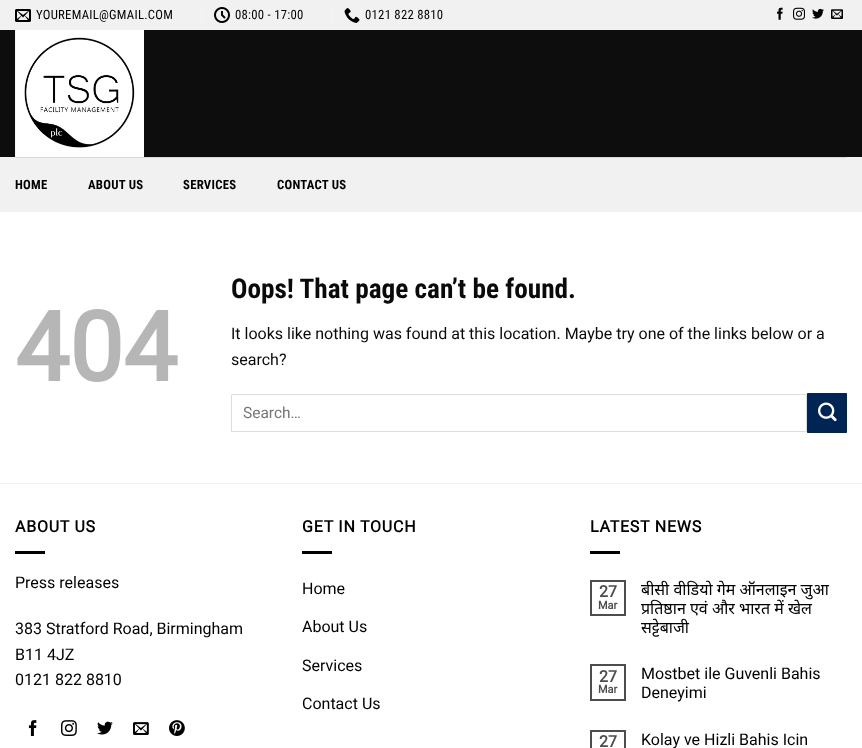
<svg xmlns="http://www.w3.org/2000/svg" width="862" height="748" viewBox="0 0 862 748">
  <rect width="100%" height="100%" fill="#fff"/>
  <path d="M0 0h862v30H0z" fill="#f1f1f1"/>
  <image x="15" y="9" width="16" height="13" href="img/1.png"/>
  <path d="M201 8h1v15H201z" fill="#f4f4f4"/>
  <image x="214" y="7" width="16" height="16" href="img/2.png"/>
  <path d="M331 8h1v15H331z" fill="#f4f4f4"/>
  <image x="344" y="8" width="16" height="15" href="img/3.png"/>
  <image x="777" y="7" width="6" height="13" href="img/4.png"/>
  <image x="793" y="7" width="12" height="13" href="img/5.png"/>
  <image x="812" y="8" width="12" height="11" href="img/6.png"/>
  <image x="831" y="9" width="12" height="10" href="img/7.png"/>
  <path d="M0 30h862v127H0z" fill="#0d0d0d"/>
  <image x="15" y="30" width="129" height="127" href="img/8.png"/>
  <path d="M0 157h862v55H0z" fill="#f1f1f1"/>
  <path d="M15 157h832v1H15z" fill="#dadada"/>
  <path d="M231.5 394.5h575v37H231.5z" fill="none" stroke="#ddd"/>
  <path d="M807.5 393.5h39v39H807.5z" fill="#002554" stroke="#002350"/>
  <image x="818" y="402" width="19" height="20" href="img/9.png"/>
  <path d="M0 483h862v1H0z" fill="#f2f2f2"/>
  <path d="M15 551h30v3H15z" fill="#000"/>
  <image x="28" y="720" width="9" height="16" href="img/10.png"/>
  <image x="61" y="720" width="16" height="16" href="img/11.png"/>
  <image x="97" y="721" width="16" height="14" href="img/12.png"/>
  <image x="133" y="722" width="16" height="13" href="img/13.png"/>
  <image x="169" y="720" width="16" height="16" href="img/14.png"/>
  <path d="M302 551h30v3H302z" fill="#000"/>
  <path d="M590 551h30v3H590z" fill="#000"/>
  <path d="M591 581h34v34H591z" fill="none" stroke="#4d4d4d" stroke-width="2"/>
  <path d="M591 665h34v35H591z" fill="none" stroke="#4d4d4d" stroke-width="2"/>
  <path d="M591 731h34v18H591z" fill="none" stroke="#4d4d4d" stroke-width="2"/>
  <g font-family="Roboto Condensed" font-size="12.75" letter-spacing="0.25" fill="#000">
    <text x="36" y="19">YOUREMAIL@GMAIL.COM</text>
    <text x="235" y="19">08:00 - 17:00</text>
    <text x="365" y="19">0121 822 8810</text>
  </g>
  <g font-family="Roboto Condensed" font-size="12.75" font-weight="bold" letter-spacing="0.25" fill="#000">
    <text x="15" y="189">HOME</text>
    <text x="88" y="189">ABOUT US</text>
    <text x="183" y="189">SERVICES</text>
    <text x="277" y="189">CONTACT US</text>
  </g>
  <text x="15" y="381" font-family="Roboto" font-size="96" font-weight="bold" fill="#b6b6b6">404</text>
  <text x="231" y="298" font-family="Roboto Condensed" font-size="27.25" font-weight="bold" fill="#0a0a0a">Oops! That page can’t be found.</text>
  <g font-family="Roboto" font-size="16" fill="#0a0a0a">
    <text x="231" y="339">It looks like nothing was found at this location. Maybe try one of the links below or a</text>
    <text x="231" y="365">search?</text>
  </g>
  <text x="243" y="418" font-family="Roboto" font-size="15.5" fill="#757575">Search…</text>
  <text x="15" y="532" font-family="Roboto" font-size="16" font-weight="bold" letter-spacing="0.75" fill="#000">ABOUT US</text>
  <g font-family="Roboto" font-size="16" fill="#000">
    <text x="15" y="588">Press releases</text>
    <text x="15" y="634">383 Stratford Road, Birmingham</text>
    <text x="15" y="660">B11 4JZ</text>
    <text x="15" y="685">0121 822 8810</text>
  </g>
  <text x="302" y="532" font-family="Roboto" font-size="16" font-weight="bold" letter-spacing="0.75" fill="#000">GET IN TOUCH</text>
  <g font-family="Roboto" font-size="16" fill="#000">
    <text x="302" y="594">Home</text>
    <text x="302" y="632">About Us</text>
    <text x="302" y="671">Services</text>
    <text x="302" y="709">Contact Us</text>
  </g>
  <text x="590" y="532" font-family="Roboto" font-size="16" font-weight="bold" letter-spacing="0.75" fill="#000">LATEST NEWS</text>
  <text x="599" y="597" font-family="Roboto" font-size="16" font-weight="bold" fill="#4d4d4d">27</text>
  <text x="598" y="609" font-family="Roboto" font-size="11" font-weight="bold" fill="#4d4d4d">Mar</text>
  <g font-family="Noto Sans" font-size="16" fill="#000">
    <text x="641" y="595">बीसी वीडियो गेम ऑनलाइन जुआ</text>
    <text x="641" y="614">प्रतिष्ठान एवं और भारत में खेल</text>
    <text x="641" y="633">सट्टेबाजी</text>
  </g>
  <text x="599" y="682" font-family="Roboto" font-size="16" font-weight="bold" fill="#4d4d4d">27</text>
  <text x="598" y="693" font-family="Roboto" font-size="11" font-weight="bold" fill="#4d4d4d">Mar</text>
  <g font-family="Roboto" font-size="16" fill="#000">
    <text x="641" y="679">Mostbet ile Guvenli Bahis</text>
    <text x="641" y="698">Deneyimi</text>
  </g>
  <text x="599" y="747" font-family="Roboto" font-size="16" font-weight="bold" fill="#4d4d4d">27</text>
  <text x="641" y="745" font-family="Roboto" font-size="16" fill="#000">Kolay ve Hizli Bahis Icin</text>
</svg>
